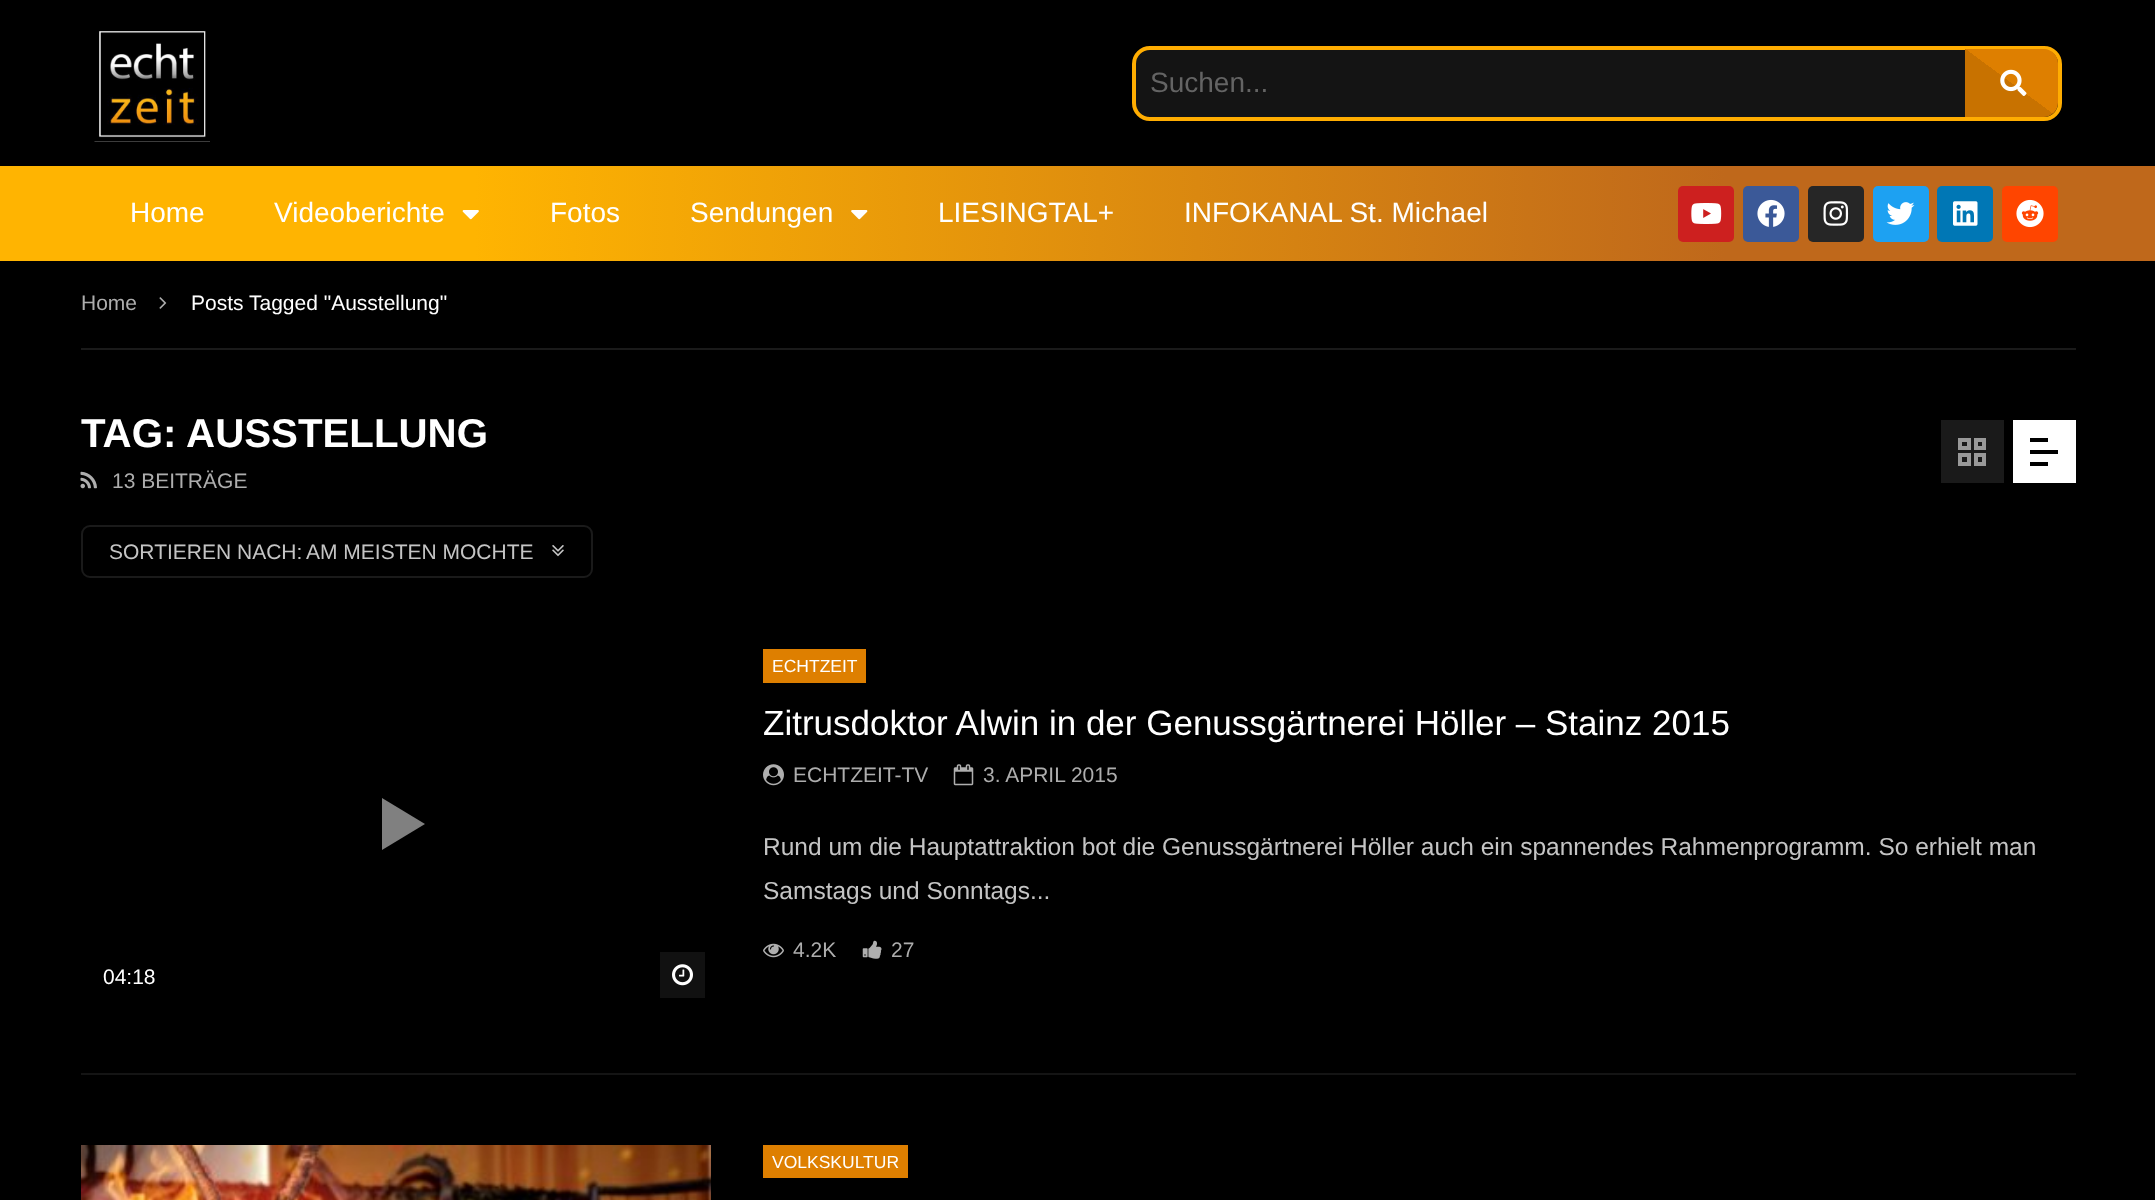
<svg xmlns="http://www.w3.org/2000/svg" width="2155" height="1200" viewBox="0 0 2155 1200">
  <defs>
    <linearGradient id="g1" gradientUnits="userSpaceOnUse" x1="2044" y1="39" x2="1979" y2="127"><stop offset="0.5" stop-color="#de7f00"/><stop offset="0.5" stop-color="#c87200"/></linearGradient>
    <linearGradient id="g2" gradientUnits="userSpaceOnUse" x1="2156" y1="213" x2="0" y2="214"><stop offset="0.2" stop-color="#bf681b"/><stop offset="0.78" stop-color="#ffb401"/></linearGradient>
  </defs>
  <rect width="100%" height="100%" fill="#000"/>
  <image x="94" y="31" width="116" height="111" href="img/1.png"/>
  <rect x="1134" y="48" width="926" height="71" rx="16" fill="#141414" stroke="#ffad01" stroke-width="4"/>
  <path d="M1965 49H2044C2051.5 49 2058 55.5 2058 63V103C2058 110.5 2051.5 117 2044 117H1965Z" fill="url(#g1)"/>
  <image x="2000" y="69" width="27" height="27" href="img/2.png"/>
  <path d="M0 166h2155v95H0z" fill="url(#g2)"/>
  <image x="462" y="210" width="17" height="10" href="img/3.png"/>
  <image x="851" y="210" width="17" height="10" href="img/4.png"/>
  <rect x="1678" y="186" width="56" height="56" rx="5" fill="#cd201f"/>
  <image x="1691" y="203" width="31" height="21" href="img/5.png"/>
  <rect x="1743" y="186" width="56" height="56" rx="5" fill="#3b5998"/>
  <image x="1757" y="199" width="28" height="28" href="img/6.png"/>
  <rect x="1808" y="186" width="56" height="56" rx="5" fill="#262626"/>
  <image x="1823" y="201" width="26" height="25" href="img/7.png"/>
  <rect x="1873" y="186" width="56" height="56" rx="5" fill="#1da1f2"/>
  <image x="1886" y="202" width="29" height="23" href="img/8.png"/>
  <rect x="1937" y="186" width="56" height="56" rx="5" fill="#0077b5"/>
  <image x="1953" y="201" width="25" height="25" href="img/9.png"/>
  <rect x="2002" y="186" width="56" height="56" rx="5" fill="#ff4500"/>
  <image x="2016" y="199" width="28" height="29" href="img/10.png"/>
  <path d="M81 348h1995v2H81z" fill="#1a1a1a"/>
  <image x="159" y="297" width="8" height="12" href="img/11.png"/>
  <image x="80" y="471" width="17" height="18" href="img/12.png"/>
  <rect x="82" y="526" width="510" height="51" rx="8" fill="none" stroke="#1a1a1a" stroke-width="2"/>
  <image x="552" y="545" width="12" height="12" href="img/13.png"/>
  <path d="M1941 420h63v63H1941z" fill="#1a1a1a"/>
  <path d="M1960 440h9v8H1960z" fill="none" stroke="#999" stroke-width="4"/>
  <path d="M1976 440h8v8H1976z" fill="none" stroke="#999" stroke-width="4"/>
  <path d="M1960 455h9v9H1960z" fill="none" stroke="#999" stroke-width="4"/>
  <path d="M1976 455h8v9H1976z" fill="none" stroke="#999" stroke-width="4"/>
  <path d="M2013 420h63v63H2013z" fill="#fff"/>
  <path d="M2030 438h18v4H2030z" fill="#000"/>
  <path d="M2030 450h28v4H2030z" fill="#000"/>
  <path d="M2030 462h18v4H2030z" fill="#000"/>
  <path d="M81 1073h1995v2H81z" fill="#141414"/>
  <path d="M763 649h103v34H763z" fill="#de7f00"/>
  <image x="763" y="764" width="21" height="22" href="img/14.png"/>
  <image x="953" y="764" width="21" height="22" href="img/15.png"/>
  <image x="763" y="943" width="21" height="15" href="img/16.png"/>
  <image x="862" y="940" width="20" height="19" href="img/17.png"/>
  <path d="M382 850V798L425 824Z" fill="#808080"/>
  <path d="M660 952h45v46H660z" fill="#111"/>
  <image x="672" y="964" width="21" height="22" href="img/18.png"/>
  <image x="81" y="1145" width="630" height="55" href="img/19.png"/>
  <path d="M763 1145h145v33H763z" fill="#de7f00"/>
  <text x="1150" y="92" font-family="Liberation Sans" font-size="28" fill="#646464">Suchen...</text>
  <g font-family="Liberation Sans" font-size="28" fill="#fff">
    <text x="130" y="222">Home</text>
    <text x="274" y="222">Videoberichte</text>
    <text x="550" y="222">Fotos</text>
    <text x="690" y="222">Sendungen</text>
    <text x="938" y="222">LIESINGTAL+</text>
    <text x="1184" y="222">INFOKANAL St. Michael</text>
  </g>
  <text x="81" y="310" font-family="Liberation Sans" font-size="21" fill="#adadad">Home</text>
  <text x="191" y="310" font-family="Liberation Sans" font-size="21" fill="#fff">Posts Tagged "Ausstellung"</text>
  <text x="81" y="447" font-family="Liberation Sans" font-size="40.25" font-weight="bold" fill="#fff">TAG: AUSSTELLUNG</text>
  <text x="112" y="488" font-family="Liberation Sans" font-size="21" fill="#adadad">13 BEITRÄGE</text>
  <g font-family="Liberation Sans" font-size="21" fill="#c4c4c4">
    <text x="109" y="559">SORTIEREN NACH:</text>
    <text x="306" y="559">AM MEISTEN MOCHTE</text>
  </g>
  <text x="772" y="672" font-family="Liberation Sans" font-size="17.5" fill="#fff">ECHTZEIT</text>
  <text x="763" y="735" font-family="Liberation Sans" font-size="35" fill="#fff">Zitrusdoktor Alwin in der Genussgärtnerei Höller – Stainz 2015</text>
  <g font-family="Liberation Sans" font-size="21" fill="#adadad">
    <text x="793" y="782">ECHTZEIT-TV</text>
    <text x="983" y="782">3. APRIL 2015</text>
  </g>
  <g font-family="Liberation Sans" font-size="24.5" fill="#c4c4c4">
    <text x="763" y="855">Rund um die Hauptattraktion bot die Genussgärtnerei Höller auch ein spannendes Rahmenprogramm. So erhielt man</text>
    <text x="763" y="899">Samstags und Sonntags...</text>
  </g>
  <g font-family="Liberation Sans" font-size="21" fill="#adadad">
    <text x="793" y="957">4.2K</text>
    <text x="891" y="957">27</text>
  </g>
  <text x="103" y="984" font-family="Liberation Sans" font-size="21" fill="#fff">04:18</text>
  <text x="772" y="1168" font-family="Liberation Sans" font-size="17.5" fill="#fff">VOLKSKULTUR</text>
</svg>
